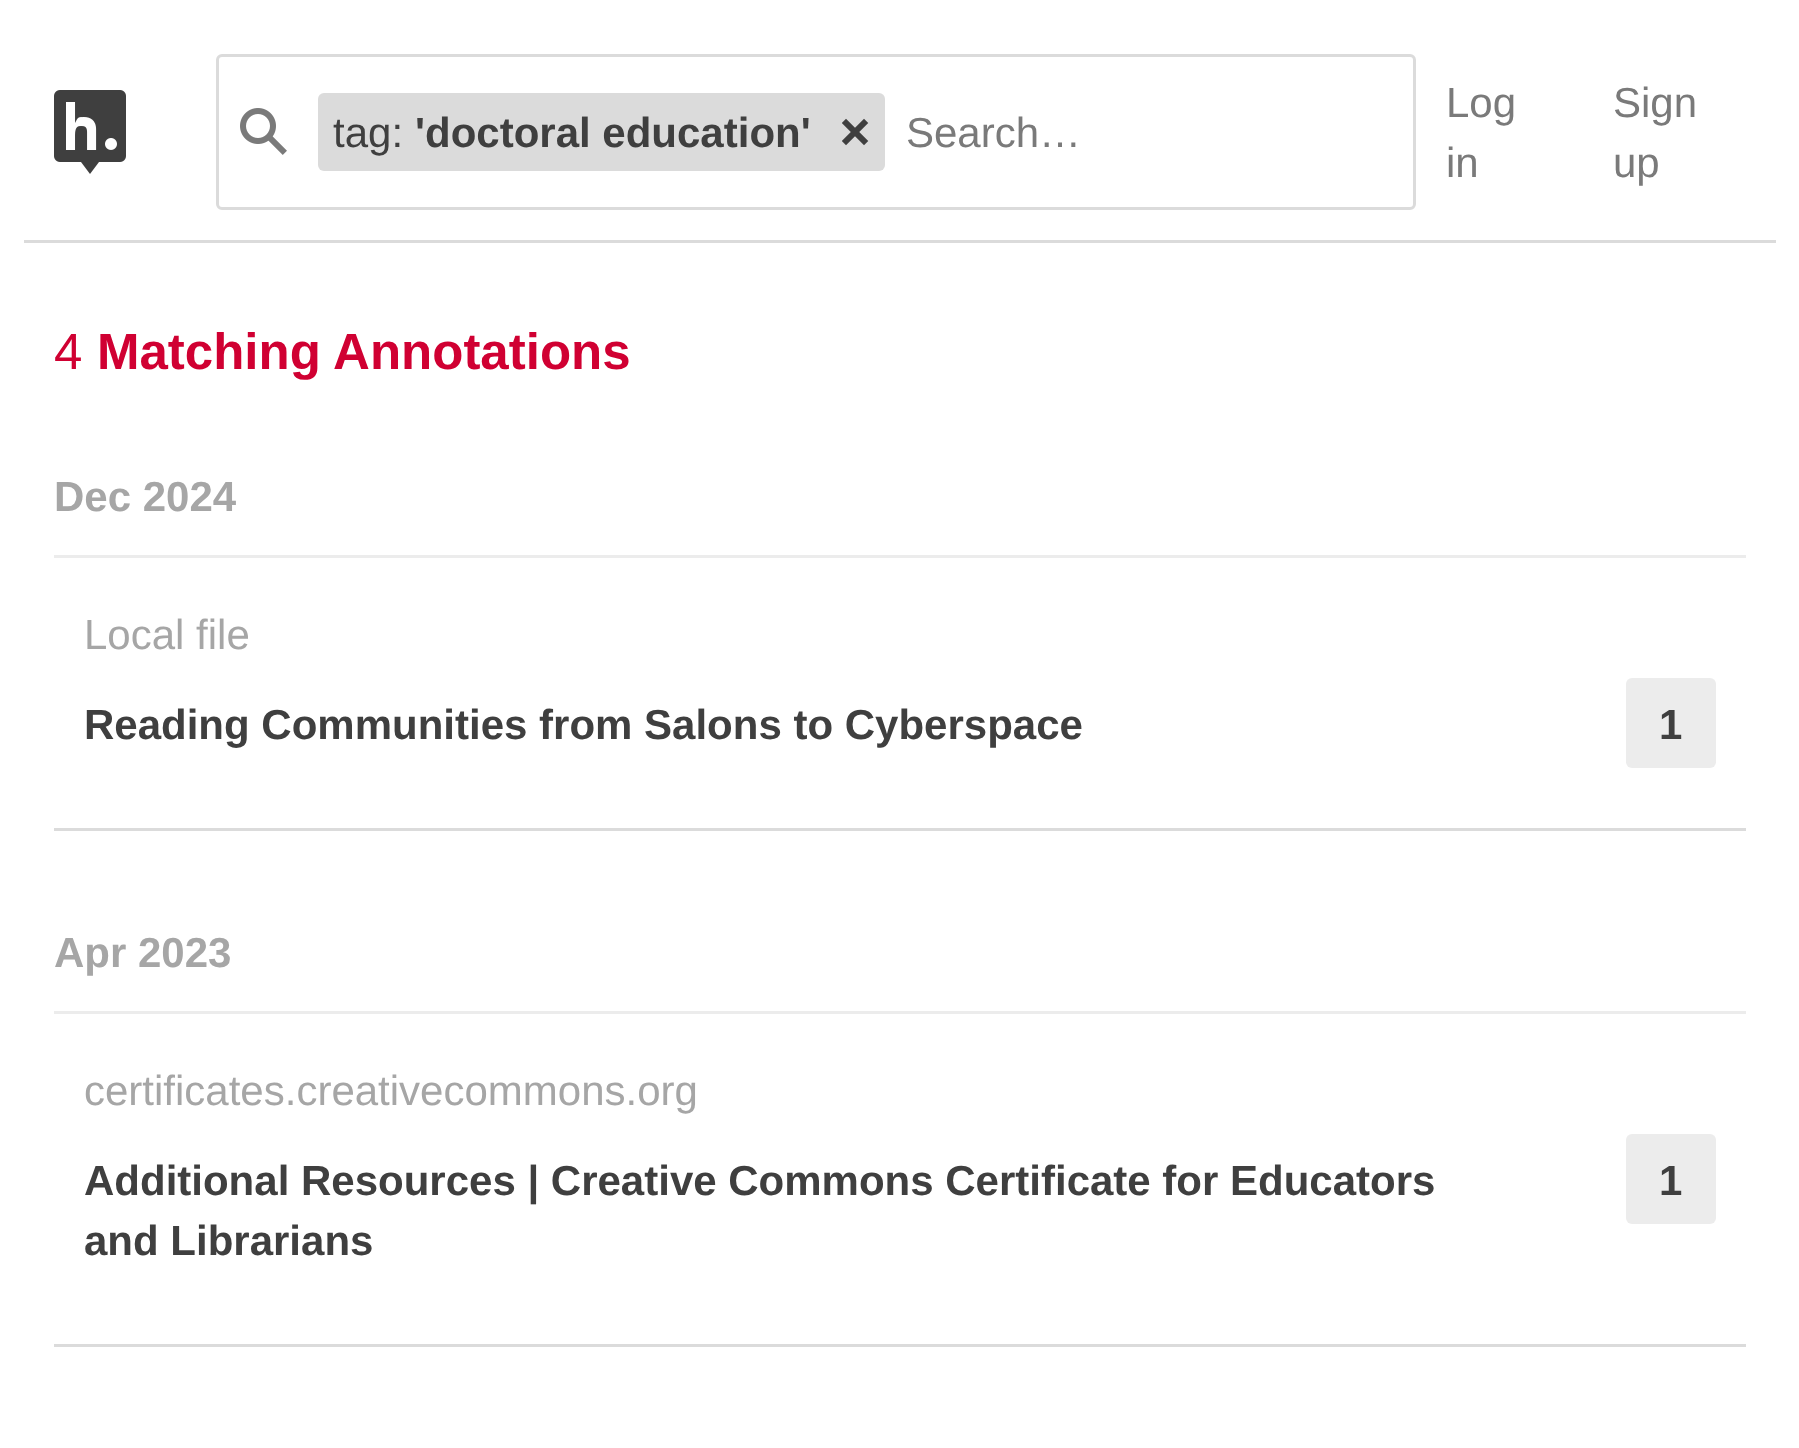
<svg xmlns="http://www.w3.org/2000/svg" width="1799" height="1448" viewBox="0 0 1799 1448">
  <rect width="100%" height="100%" fill="#fff"/>
  <path d="M24 240h1752v3H24z" fill="#dbdbdb"/>
  <image x="54" y="90" width="72" height="84" href="img/1.png"/>
  <rect x="217.5" y="55.5" width="1197" height="153" rx="4.5" fill="none" stroke="#dbdbdb" stroke-width="3"/>
  <image x="240" y="108" width="47" height="47" href="img/2.png"/>
  <rect x="318" y="93" width="567" height="78" rx="6" fill="#dbdbdb"/>
  <image x="842" y="118" width="27" height="28" href="img/3.png"/>
  <path d="M54 555h1692v3H54z" fill="#ececec"/>
  <path d="M54 828h1692v3H54z" fill="#dbdbdb"/>
  <rect x="1626" y="678" width="90" height="90" rx="6" fill="#ececec"/>
  <path d="M54 1011h1692v3H54z" fill="#ececec"/>
  <path d="M54 1344h1692v3H54z" fill="#dbdbdb"/>
  <rect x="1626" y="1134" width="90" height="90" rx="6" fill="#ececec"/>
  <text x="333" y="147" font-family="Liberation Sans" font-size="42" fill="#3f3f3f">tag:</text>
  <text x="415" y="147" font-family="Liberation Sans" font-size="42" font-weight="bold" fill="#3f3f3f">'doctoral education'</text>
  <g font-family="Liberation Sans" font-size="42" fill="#7a7a7a">
    <text x="906" y="147">Search…</text>
    <text x="1446" y="117">Log</text>
    <text x="1446" y="177">in</text>
    <text x="1613" y="117">Sign</text>
    <text x="1613" y="177">up</text>
  </g>
  <text x="54" y="369" font-family="Liberation Sans" font-size="51" fill="#d00032">4</text>
  <text x="97" y="369" font-family="Liberation Sans" font-size="51" font-weight="bold" fill="#d00032">Matching Annotations</text>
  <text x="54" y="511" font-family="Liberation Sans" font-size="42" font-weight="bold" fill="#a6a6a6">Dec 2024</text>
  <text x="84" y="649" font-family="Liberation Sans" font-size="42" fill="#a6a6a6">Local file</text>
  <g font-family="Liberation Sans" font-size="42" font-weight="bold" fill="#3f3f3f">
    <text x="84" y="739">Reading Communities from Salons to Cyberspace</text>
    <text x="1659" y="739">1</text>
  </g>
  <text x="54" y="967" font-family="Liberation Sans" font-size="42" font-weight="bold" fill="#a6a6a6">Apr 2023</text>
  <text x="84" y="1105" font-family="Liberation Sans" font-size="42" fill="#a6a6a6">certificates.creativecommons.org</text>
  <g font-family="Liberation Sans" font-size="42" font-weight="bold" fill="#3f3f3f">
    <text x="84" y="1195">Additional Resources | Creative Commons Certificate for Educators</text>
    <text x="84" y="1255">and Librarians</text>
    <text x="1659" y="1195">1</text>
  </g>
</svg>
